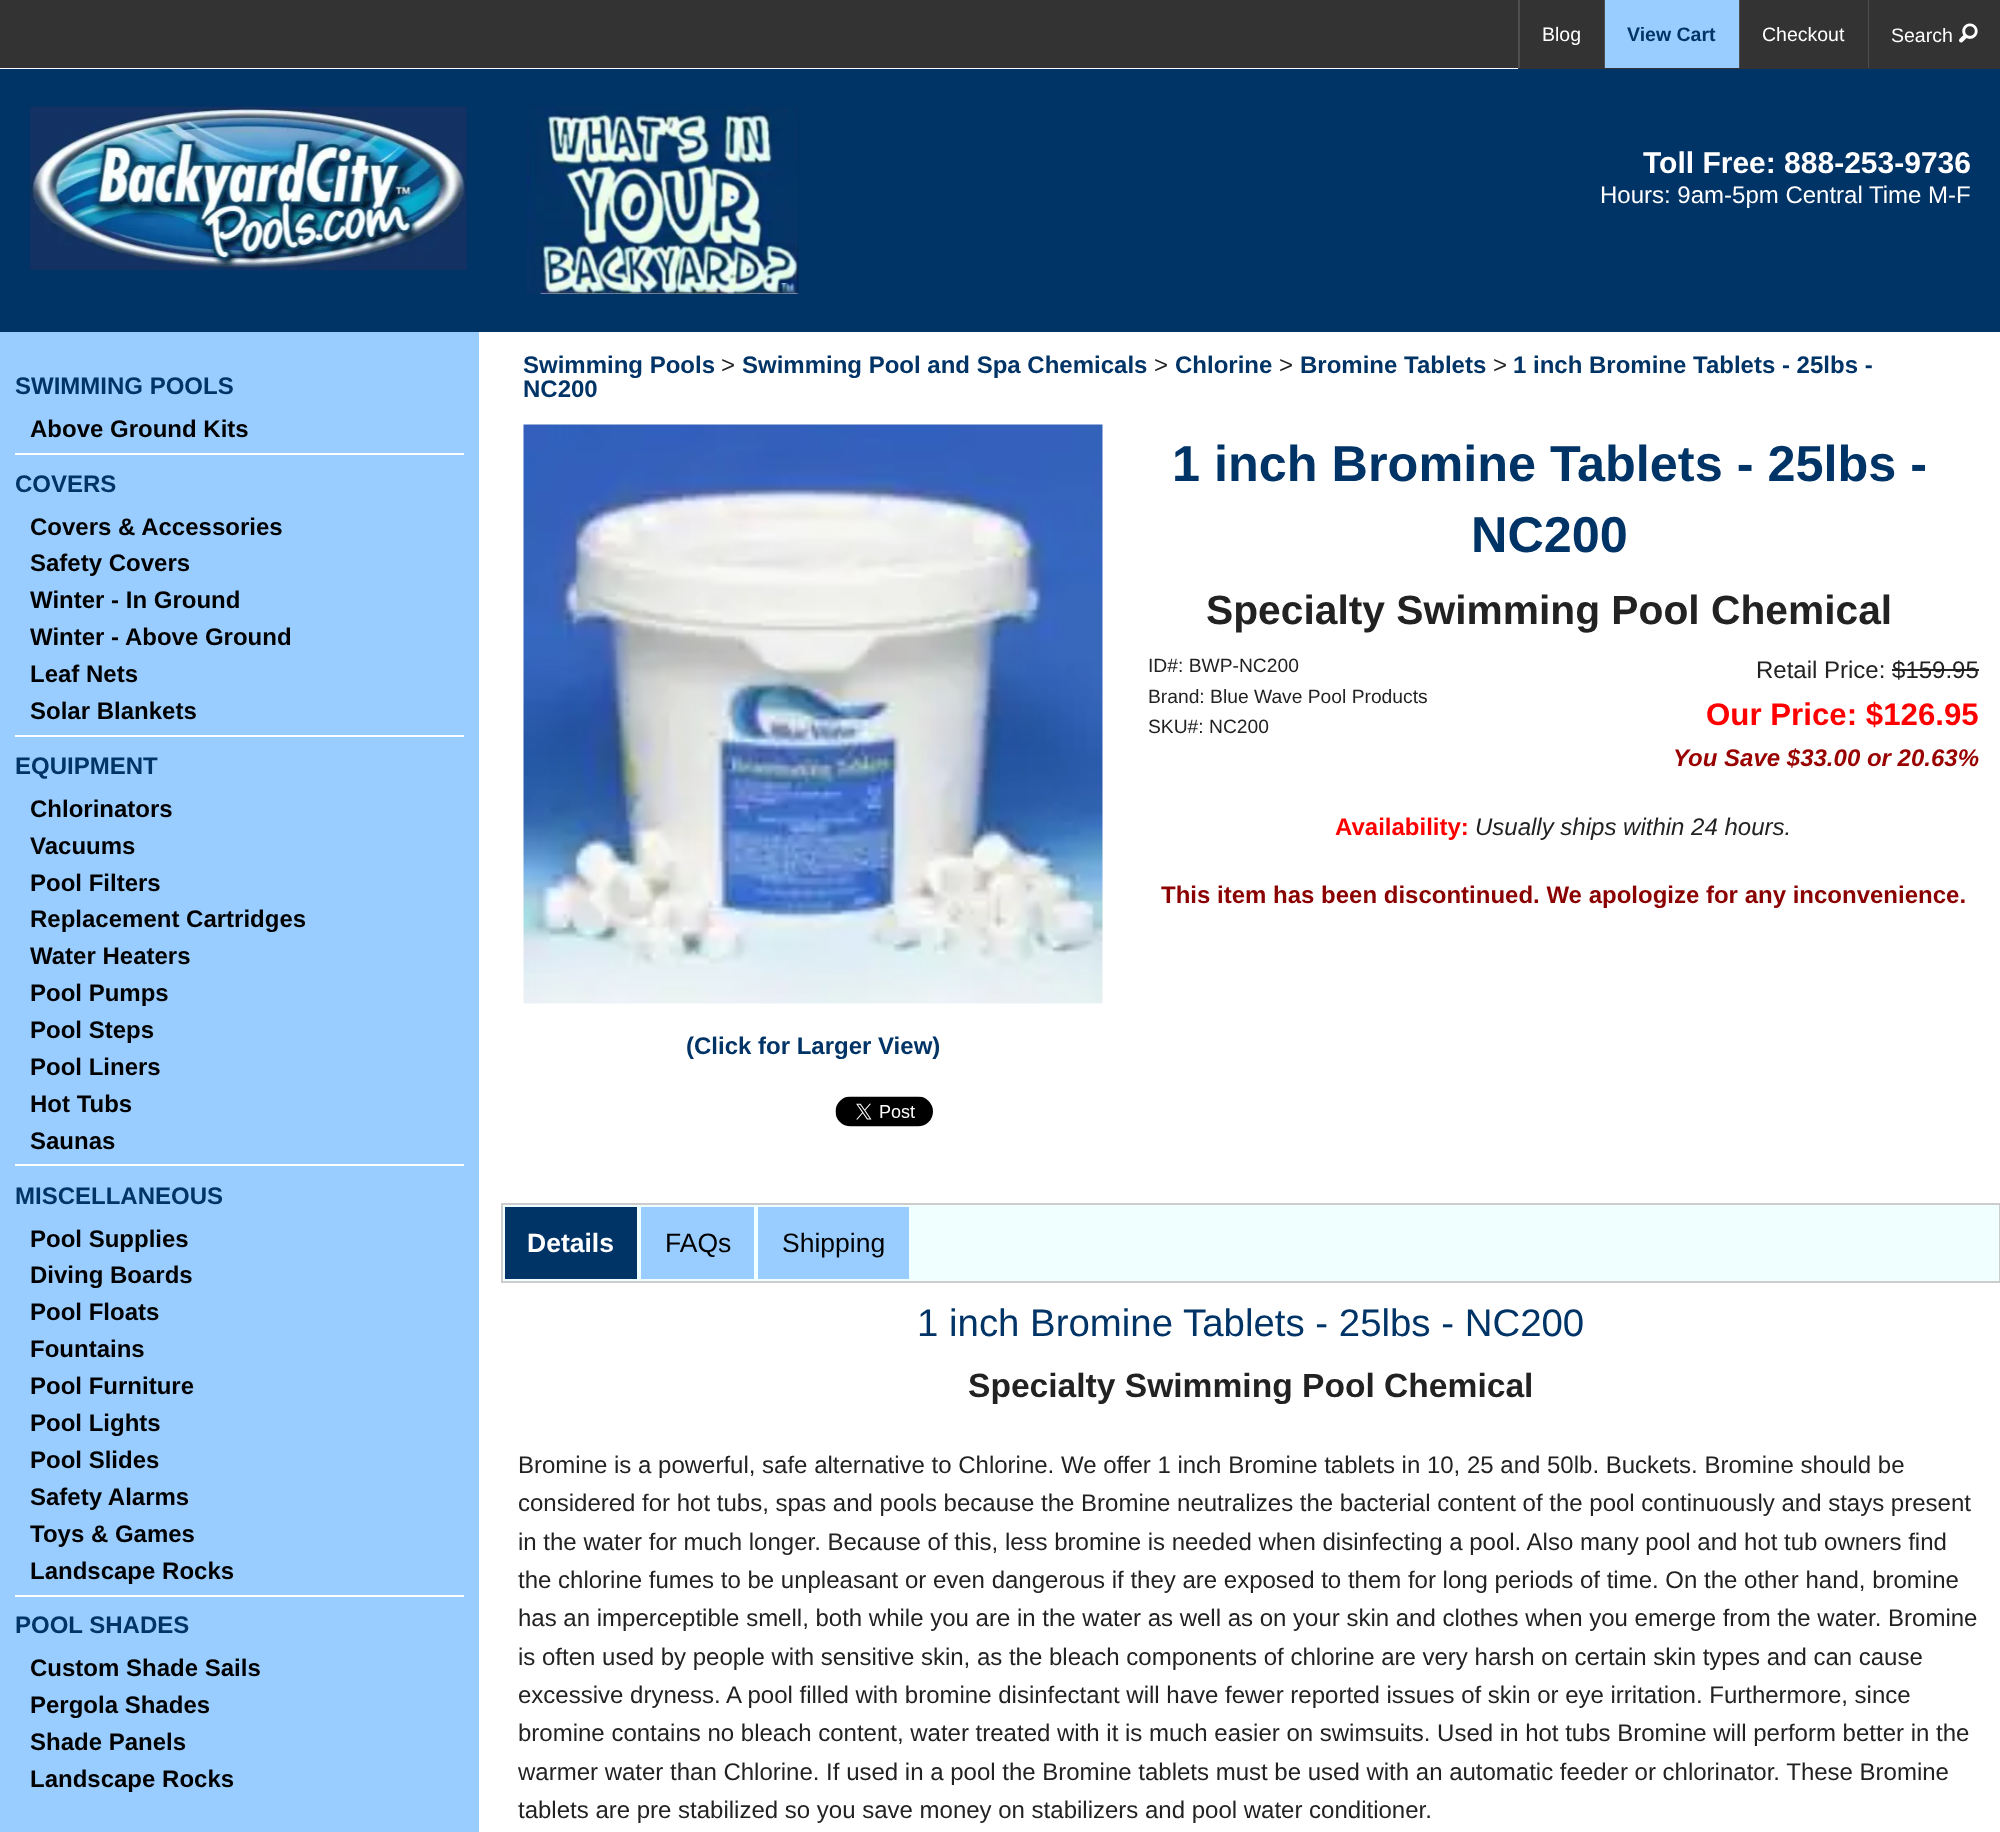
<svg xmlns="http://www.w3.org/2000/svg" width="2000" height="1832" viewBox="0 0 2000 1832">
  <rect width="100%" height="100%" fill="#fff"/>
  <path d="M0 0h1518v68H0z" fill="#333"/>
  <path d="M1518 0h482v69H1518z" fill="#333"/>
  <path d="M1518 0h2v68H1518z" fill="#4e4e4e"/>
  <path d="M1604 0h1v68H1604z" fill="#4e4e4e"/>
  <path d="M1605 0h134v68H1605z" fill="#9cf"/>
  <path d="M1739 0h1v68H1739z" fill="#4e4e4e"/>
  <path d="M1868 0h1v68H1868z" fill="#4e4e4e"/>
  <image x="1959" y="23" width="19" height="20" href="img/1.png"/>
  <path d="M0 69h2000v263H0z" fill="#036"/>
  <image x="29" y="106" width="438" height="164" href="img/2.png"/>
  <image x="526" y="106" width="273" height="188" href="img/3.png"/>
  <path d="M0 332h479v1500H0z" fill="#9cf"/>
  <path d="M15 453h449v2H15z" fill="#fff"/>
  <path d="M15 735h449v2H15z" fill="#fff"/>
  <path d="M15 1164h449v2H15z" fill="#fff"/>
  <path d="M15 1595h449v2H15z" fill="#fff"/>
  <path d="M1892 669h87v2H1892z" fill="#222"/>
  <image x="523" y="424" width="580" height="580" href="img/4.png"/>
  <image x="835" y="1096" width="98" height="31" href="img/5.png"/>
  <path d="M911 1205h1088v76H911z" fill="#f0ffff"/>
  <path d="M502 1204h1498v78H502z" fill="none" stroke="#ccc" stroke-width="2"/>
  <path d="M504 1206h134v74H504z" fill="#036" stroke="#f0ffff" stroke-width="2"/>
  <path d="M640 1206h115v74H640z" fill="#9cf" stroke="#f0ffff" stroke-width="2"/>
  <path d="M757 1206h153v74H757z" fill="#9cf" stroke="#f0ffff" stroke-width="2"/>
  <text x="1542" y="41" font-family="Liberation Sans" font-size="19.5" fill="#fff">Blog</text>
  <text x="1627" y="41" font-family="Liberation Sans" font-size="19.5" font-weight="bold" fill="#036">View Cart</text>
  <g font-family="Liberation Sans" font-size="19.5" fill="#fff">
    <text x="1762" y="41">Checkout</text>
    <text x="1891" y="42">Search</text>
  </g>
  <text x="1643" y="173" font-family="Liberation Sans" font-size="30" font-weight="bold" fill="#fff">Toll Free: 888-253-9736</text>
  <text x="1600" y="203" font-family="Liberation Sans" font-size="24" fill="#fff">Hours: 9am-5pm Central Time M-F</text>
  <text x="15" y="394" font-family="Liberation Sans" font-size="24" font-weight="bold" fill="#036">SWIMMING POOLS</text>
  <text x="30" y="437" font-family="Liberation Sans" font-size="24" font-weight="bold" fill="#000">Above Ground Kits</text>
  <text x="15" y="492" font-family="Liberation Sans" font-size="24" font-weight="bold" fill="#036">COVERS</text>
  <g font-family="Liberation Sans" font-size="24" font-weight="bold" fill="#000">
    <text x="30" y="535">Covers &amp; Accessories</text>
    <text x="30" y="571">Safety Covers</text>
    <text x="30" y="608">Winter - In Ground</text>
    <text x="30" y="645">Winter - Above Ground</text>
    <text x="30" y="682">Leaf Nets</text>
    <text x="30" y="719">Solar Blankets</text>
  </g>
  <text x="15" y="774" font-family="Liberation Sans" font-size="24" font-weight="bold" fill="#036">EQUIPMENT</text>
  <g font-family="Liberation Sans" font-size="24" font-weight="bold" fill="#000">
    <text x="30" y="817">Chlorinators</text>
    <text x="30" y="854">Vacuums</text>
    <text x="30" y="891">Pool Filters</text>
    <text x="30" y="927">Replacement Cartridges</text>
    <text x="30" y="964">Water Heaters</text>
    <text x="30" y="1001">Pool Pumps</text>
    <text x="30" y="1038">Pool Steps</text>
    <text x="30" y="1075">Pool Liners</text>
    <text x="30" y="1112">Hot Tubs</text>
    <text x="30" y="1149">Saunas</text>
  </g>
  <text x="15" y="1204" font-family="Liberation Sans" font-size="24" font-weight="bold" fill="#036">MISCELLANEOUS</text>
  <g font-family="Liberation Sans" font-size="24" font-weight="bold" fill="#000">
    <text x="30" y="1247">Pool Supplies</text>
    <text x="30" y="1283">Diving Boards</text>
    <text x="30" y="1320">Pool Floats</text>
    <text x="30" y="1357">Fountains</text>
    <text x="30" y="1394">Pool Furniture</text>
    <text x="30" y="1431">Pool Lights</text>
    <text x="30" y="1468">Pool Slides</text>
    <text x="30" y="1505">Safety Alarms</text>
    <text x="30" y="1542">Toys &amp; Games</text>
    <text x="30" y="1579">Landscape Rocks</text>
  </g>
  <text x="15" y="1633" font-family="Liberation Sans" font-size="24" font-weight="bold" fill="#036">POOL SHADES</text>
  <g font-family="Liberation Sans" font-size="24" font-weight="bold" fill="#000">
    <text x="30" y="1676">Custom Shade Sails</text>
    <text x="30" y="1713">Pergola Shades</text>
    <text x="30" y="1750">Shade Panels</text>
    <text x="30" y="1787">Landscape Rocks</text>
  </g>
  <text x="523" y="373" font-family="Liberation Sans" font-size="24" font-weight="bold" fill="#036">Swimming Pools</text>
  <text x="721" y="373" font-family="Liberation Sans" font-size="24" fill="#222">&gt;</text>
  <text x="742" y="373" font-family="Liberation Sans" font-size="24" font-weight="bold" fill="#036">Swimming Pool and Spa Chemicals</text>
  <text x="1154" y="373" font-family="Liberation Sans" font-size="24" fill="#222">&gt;</text>
  <text x="1175" y="373" font-family="Liberation Sans" font-size="24" font-weight="bold" fill="#036">Chlorine</text>
  <text x="1279" y="373" font-family="Liberation Sans" font-size="24" fill="#222">&gt;</text>
  <text x="1300" y="373" font-family="Liberation Sans" font-size="24" font-weight="bold" fill="#036">Bromine Tablets</text>
  <text x="1493" y="373" font-family="Liberation Sans" font-size="24" fill="#222">&gt;</text>
  <g font-family="Liberation Sans" font-size="24" font-weight="bold" fill="#036">
    <text x="1513" y="373">1 inch Bromine Tablets - 25lbs -</text>
    <text x="523" y="397">NC200</text>
  </g>
  <g font-family="Liberation Sans" font-size="50.4" font-weight="bold" fill="#036">
    <text x="1172" y="481">1 inch Bromine Tablets - 25lbs -</text>
    <text x="1471" y="552">NC200</text>
  </g>
  <text x="1206" y="624" font-family="Liberation Sans" font-size="40.75" font-weight="bold" fill="#222">Specialty Swimming Pool Chemical</text>
  <g font-family="Liberation Sans" font-size="19.25" fill="#222">
    <text x="1148" y="672">ID#: BWP-NC200</text>
    <text x="1148" y="703">Brand: Blue Wave Pool Products</text>
    <text x="1148" y="733">SKU#: NC200</text>
  </g>
  <text x="1756" y="678" font-family="Liberation Sans" font-size="24" fill="#222">Retail Price: $159.95</text>
  <text x="1706" y="725" font-family="Liberation Sans" font-size="31.25" font-weight="bold" fill="#f00">Our Price: $126.95</text>
  <text x="1673" y="766" font-family="Liberation Sans" font-size="24" font-weight="bold" font-style="italic" fill="#900">You Save $33.00 or 20.63%</text>
  <text x="1335" y="835" font-family="Liberation Sans" font-size="24" font-weight="bold" fill="#f00">Availability:</text>
  <text x="1475" y="835" font-family="Liberation Sans" font-size="24" font-style="italic" fill="#222">Usually ships within 24 hours.</text>
  <text x="1161" y="903" font-family="Liberation Sans" font-size="24" font-weight="bold" fill="#8b0000">This item has been discontinued. We apologize for any inconvenience.</text>
  <text x="686" y="1054" font-family="Liberation Sans" font-size="24" font-weight="bold" fill="#036">(Click for Larger View)</text>
  <text x="527" y="1252" font-family="Liberation Sans" font-size="26.5" font-weight="bold" fill="#fff">Details</text>
  <g font-family="Liberation Sans" font-size="26.5" fill="#000">
    <text x="665" y="1252">FAQs</text>
    <text x="782" y="1252">Shipping</text>
  </g>
  <text x="917" y="1336" font-family="Liberation Sans" font-size="38.4" fill="#036">1 inch Bromine Tablets - 25lbs - NC200</text>
  <text x="968" y="1397" font-family="Liberation Sans" font-size="33.6" font-weight="bold" fill="#222">Specialty Swimming Pool Chemical</text>
  <g font-family="Liberation Sans" font-size="24" fill="#222">
    <text x="518" y="1473">Bromine is a powerful, safe alternative to Chlorine. We offer 1 inch Bromine tablets in 10, 25 and 50lb. Buckets. Bromine should be</text>
    <text x="518" y="1511">considered for hot tubs, spas and pools because the Bromine neutralizes the bacterial content of the pool continuously and stays present</text>
    <text x="518" y="1550">in the water for much longer. Because of this, less bromine is needed when disinfecting a pool. Also many pool and hot tub owners find</text>
    <text x="518" y="1588">the chlorine fumes to be unpleasant or even dangerous if they are exposed to them for long periods of time. On the other hand, bromine</text>
    <text x="518" y="1626">has an imperceptible smell, both while you are in the water as well as on your skin and clothes when you emerge from the water. Bromine</text>
    <text x="518" y="1665">is often used by people with sensitive skin, as the bleach components of chlorine are very harsh on certain skin types and can cause</text>
    <text x="518" y="1703">excessive dryness. A pool filled with bromine disinfectant will have fewer reported issues of skin or eye irritation. Furthermore, since</text>
    <text x="518" y="1741">bromine contains no bleach content, water treated with it is much easier on swimsuits. Used in hot tubs Bromine will perform better in the</text>
    <text x="518" y="1780">warmer water than Chlorine. If used in a pool the Bromine tablets must be used with an automatic feeder or chlorinator. These Bromine</text>
    <text x="518" y="1818">tablets are pre stabilized so you save money on stabilizers and pool water conditioner.</text>
  </g>
</svg>
